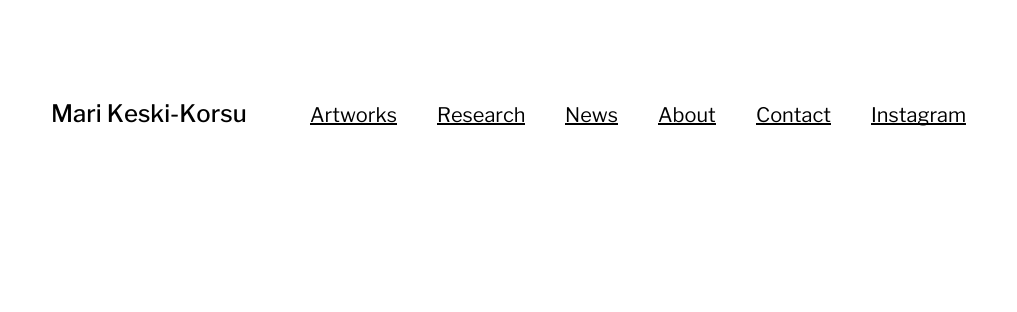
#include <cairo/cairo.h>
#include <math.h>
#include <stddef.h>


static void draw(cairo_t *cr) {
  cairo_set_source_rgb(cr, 1, 1, 1);
  cairo_paint(cr);
  cairo_set_source_rgb(cr, 0, 0, 0);
  cairo_rectangle(cr, 310, 123, 87, 2);
  cairo_fill(cr);
  cairo_rectangle(cr, 437, 123, 88, 2);
  cairo_fill(cr);
  cairo_rectangle(cr, 565, 123, 53, 2);
  cairo_fill(cr);
  cairo_rectangle(cr, 658, 123, 58, 2);
  cairo_fill(cr);
  cairo_rectangle(cr, 756, 123, 75, 2);
  cairo_fill(cr);
  cairo_rectangle(cr, 871, 123, 95, 2);
  cairo_fill(cr);
  cairo_select_font_face(cr, "Libre Franklin Thin", CAIRO_FONT_SLANT_NORMAL, CAIRO_FONT_WEIGHT_NORMAL);
  cairo_set_font_size(cr, 24);
  cairo_move_to(cr, 51, 122);
  cairo_show_text(cr, "Mari Keski-Korsu");
  cairo_select_font_face(cr, "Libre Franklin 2 Thin", CAIRO_FONT_SLANT_NORMAL, CAIRO_FONT_WEIGHT_NORMAL);
  cairo_set_font_size(cr, 20);
  cairo_move_to(cr, 310, 122);
  cairo_show_text(cr, "Artworks");
  cairo_move_to(cr, 437, 122);
  cairo_show_text(cr, "Research");
  cairo_move_to(cr, 565, 122);
  cairo_show_text(cr, "News");
  cairo_move_to(cr, 658, 122);
  cairo_show_text(cr, "About");
  cairo_move_to(cr, 756, 122);
  cairo_show_text(cr, "Contact");
  cairo_move_to(cr, 871, 122);
  cairo_show_text(cr, "Instagram");
}

int main(void) {
  cairo_surface_t *surface = cairo_image_surface_create(CAIRO_FORMAT_RGB24, 1017, 312);
  cairo_t *cr = cairo_create(surface);
  cairo_font_options_t *options = cairo_font_options_create();
  cairo_font_options_set_hint_metrics(options, CAIRO_HINT_METRICS_OFF);
  cairo_font_options_set_hint_style(options, CAIRO_HINT_STYLE_NONE);
  cairo_set_font_options(cr, options);
  cairo_set_miter_limit(cr, 4);
  draw(cr);
  cairo_surface_write_to_png(surface, "out.png");
  cairo_font_options_destroy(options);
  cairo_destroy(cr);
  cairo_surface_destroy(surface);
  return 0;
}
